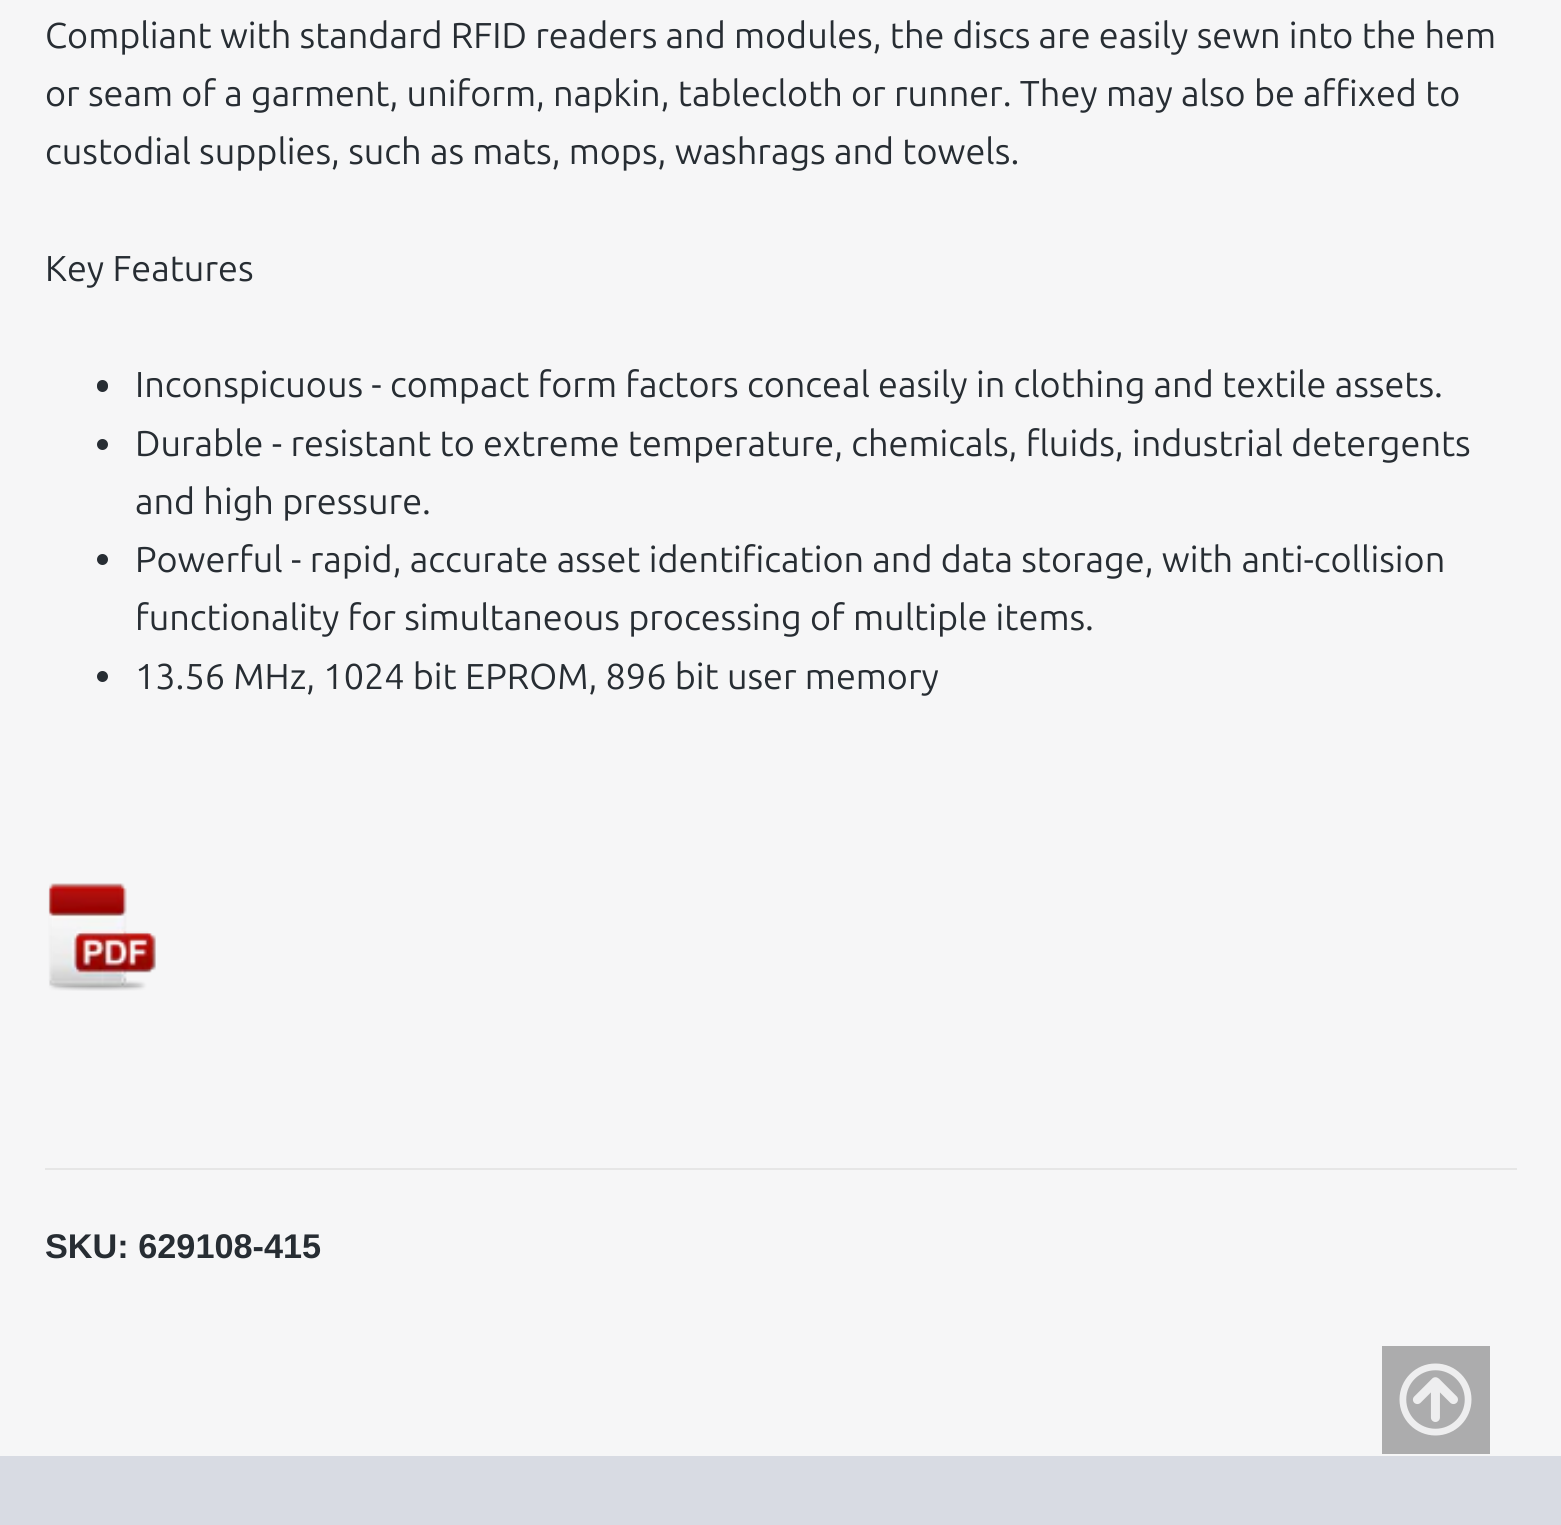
#include <cairo/cairo.h>
#include <math.h>
#include <stddef.h>


static void rounded_rect(cairo_t *cr, double x, double y, double w, double h, double r) {
  cairo_new_sub_path(cr);
  cairo_arc(cr, x + w - r, y + h - r, r, 0, M_PI / 2);
  cairo_arc(cr, x + r, y + h - r, r, M_PI / 2, M_PI);
  cairo_arc(cr, x + r, y + r, r, M_PI, 1.5 * M_PI);
  cairo_arc(cr, x + w - r, y + r, r, 1.5 * M_PI, 2 * M_PI);
  cairo_close_path(cr);
}

static void draw_image(cairo_t *cr, const char *path, double x, double y, double w, double h) {
  cairo_surface_t *image = cairo_image_surface_create_from_png(path);
  cairo_save(cr);
  cairo_set_source_surface(cr, image, x, y);
  cairo_rectangle(cr, x, y, w, h);
  cairo_fill(cr);
  cairo_restore(cr);
  cairo_surface_destroy(image);
}

static void draw(cairo_t *cr) {
  cairo_set_source_rgb(cr, 246 / 255.0, 246 / 255.0, 247 / 255.0);
  cairo_paint(cr);
  cairo_set_source_rgb(cr, 39 / 255.0, 45 / 255.0, 51 / 255.0);
  rounded_rect(cr, 97, 380, 11, 12, 5.5);
  cairo_fill(cr);
  cairo_arc(cr, 102.5, 444.5, 5.5, 0, 2 * M_PI);
  cairo_fill(cr);
  cairo_arc(cr, 102.5, 559.5, 5.5, 0, 2 * M_PI);
  cairo_fill(cr);
  cairo_arc(cr, 102.5, 676.5, 5.5, 0, 2 * M_PI);
  cairo_fill(cr);
  draw_image(cr, "images/1.png", 48, 883, 108, 108);
  cairo_set_source_rgb(cr, 230 / 255.0, 230 / 255.0, 230 / 255.0);
  cairo_rectangle(cr, 45, 1168, 1472, 2);
  cairo_fill(cr);
  cairo_set_source_rgb(cr, 172 / 255.0, 172 / 255.0, 173 / 255.0);
  cairo_rectangle(cr, 1382, 1346, 108, 108);
  cairo_fill(cr);
  draw_image(cr, "images/2.png", 1399, 1363, 73, 73);
  cairo_set_source_rgb(cr, 216 / 255.0, 219 / 255.0, 227 / 255.0);
  cairo_rectangle(cr, 0, 1456, 1561, 69);
  cairo_fill(cr);
  cairo_select_font_face(cr, "Ubuntu", CAIRO_FONT_SLANT_NORMAL, CAIRO_FONT_WEIGHT_NORMAL);
  cairo_set_font_size(cr, 36);
  cairo_set_source_rgb(cr, 39 / 255.0, 45 / 255.0, 51 / 255.0);
  cairo_move_to(cr, 45, 48);
  cairo_show_text(cr, "Compliant with standard RFID readers and modules, the discs are easily sewn into the hem");
  cairo_move_to(cr, 45, 106);
  cairo_show_text(cr, "or seam of a garment, uniform, napkin, tablecloth or runner. They may also be affixed to");
  cairo_move_to(cr, 45, 164);
  cairo_show_text(cr, "custodial supplies, such as mats, mops, washrags and towels.");
  cairo_move_to(cr, 45, 281);
  cairo_show_text(cr, "Key Features");
  cairo_move_to(cr, 135, 397);
  cairo_show_text(cr, "Inconspicuous - compact form factors conceal easily in clothing and textile assets.");
  cairo_move_to(cr, 135, 456);
  cairo_show_text(cr, "Durable - resistant to extreme temperature, chemicals, fluids, industrial detergents");
  cairo_move_to(cr, 135, 514);
  cairo_show_text(cr, "and high pressure.");
  cairo_move_to(cr, 135, 572);
  cairo_show_text(cr, "Powerful - rapid, accurate asset identification and data storage, with anti-collision");
  cairo_move_to(cr, 135, 630);
  cairo_show_text(cr, "functionality for simultaneous processing of multiple items.");
  cairo_move_to(cr, 135, 689);
  cairo_show_text(cr, "13.56 MHz, 1024 bit EPROM, 896 bit user memory");
  cairo_select_font_face(cr, "Liberation Sans", CAIRO_FONT_SLANT_NORMAL, CAIRO_FONT_WEIGHT_BOLD);
  cairo_set_font_size(cr, 34.25);
  cairo_move_to(cr, 45, 1258);
  cairo_show_text(cr, "SKU: 629108-415");
}

int main(void) {
  cairo_surface_t *surface = cairo_image_surface_create(CAIRO_FORMAT_RGB24, 1561, 1525);
  cairo_t *cr = cairo_create(surface);
  cairo_font_options_t *options = cairo_font_options_create();
  cairo_font_options_set_hint_metrics(options, CAIRO_HINT_METRICS_OFF);
  cairo_font_options_set_hint_style(options, CAIRO_HINT_STYLE_NONE);
  cairo_set_font_options(cr, options);
  cairo_set_miter_limit(cr, 4);
  draw(cr);
  cairo_surface_write_to_png(surface, "out.png");
  cairo_font_options_destroy(options);
  cairo_destroy(cr);
  cairo_surface_destroy(surface);
  return 0;
}
